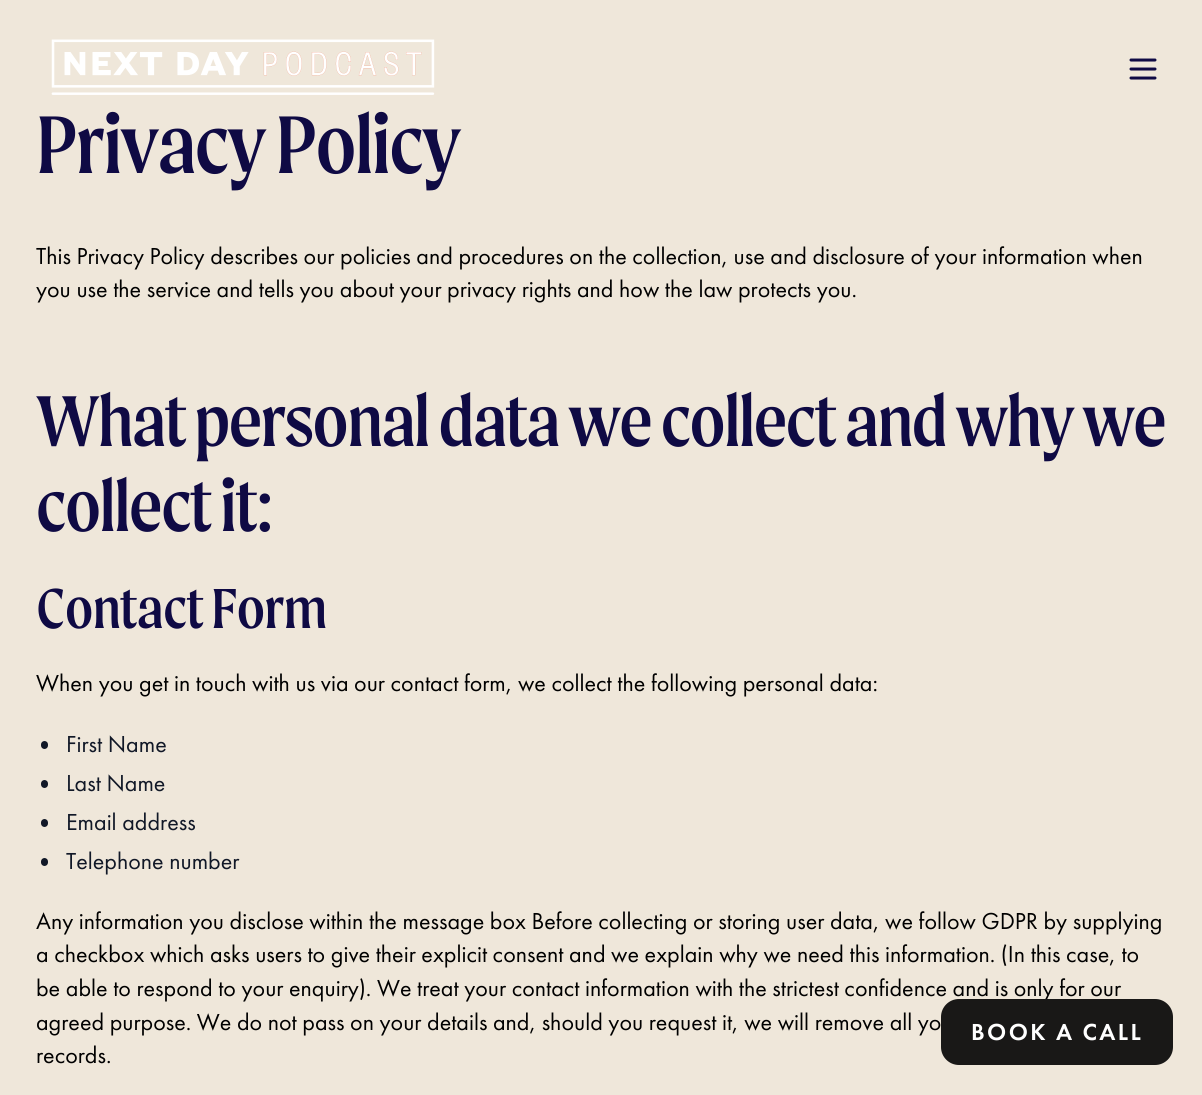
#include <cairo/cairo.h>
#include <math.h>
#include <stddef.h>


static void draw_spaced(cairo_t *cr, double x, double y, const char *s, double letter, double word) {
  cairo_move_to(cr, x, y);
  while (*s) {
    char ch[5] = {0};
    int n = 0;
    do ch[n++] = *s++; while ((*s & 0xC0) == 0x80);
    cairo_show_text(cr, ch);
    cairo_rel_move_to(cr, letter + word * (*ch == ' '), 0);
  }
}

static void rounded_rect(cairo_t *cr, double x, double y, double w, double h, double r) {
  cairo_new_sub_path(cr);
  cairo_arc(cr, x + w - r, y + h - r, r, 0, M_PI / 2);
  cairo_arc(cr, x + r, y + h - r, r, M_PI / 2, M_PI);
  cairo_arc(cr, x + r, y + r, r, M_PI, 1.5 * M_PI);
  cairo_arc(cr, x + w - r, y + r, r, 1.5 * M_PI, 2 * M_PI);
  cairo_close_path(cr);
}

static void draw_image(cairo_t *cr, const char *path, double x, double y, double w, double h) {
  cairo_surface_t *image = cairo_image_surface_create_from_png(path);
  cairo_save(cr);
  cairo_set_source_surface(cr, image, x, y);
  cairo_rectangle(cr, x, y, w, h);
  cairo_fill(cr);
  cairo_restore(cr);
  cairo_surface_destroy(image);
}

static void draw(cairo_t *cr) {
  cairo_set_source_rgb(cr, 239 / 255.0, 231 / 255.0, 218 / 255.0);
  cairo_paint(cr);
  draw_image(cr, "images/1.png", 51, 39, 384, 56);
  cairo_new_path(cr);
  cairo_move_to(cr, 1131, 60);
  cairo_line_to(cr, 1155, 60);
  cairo_move_to(cr, 1131, 69);
  cairo_line_to(cr, 1155, 69);
  cairo_move_to(cr, 1131, 78);
  cairo_line_to(cr, 1155, 78);
  cairo_set_source_rgb(cr, 15 / 255.0, 10 / 255.0, 68 / 255.0);
  cairo_set_line_width(cr, 3);
  cairo_set_line_cap(cr, CAIRO_LINE_CAP_ROUND);
  cairo_set_line_join(cr, CAIRO_LINE_JOIN_ROUND);
  cairo_stroke(cr);
  cairo_set_source_rgb(cr, 17 / 255.0, 24 / 255.0, 39 / 255.0);
  rounded_rect(cr, 41, 741, 7, 8, 3.5);
  cairo_fill(cr);
  rounded_rect(cr, 41, 780, 7, 8, 3.5);
  cairo_fill(cr);
  rounded_rect(cr, 41, 819, 7, 8, 3.5);
  cairo_fill(cr);
  rounded_rect(cr, 41, 858, 7, 8, 3.5);
  cairo_fill(cr);
  cairo_select_font_face(cr, "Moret", CAIRO_FONT_SLANT_NORMAL, CAIRO_FONT_WEIGHT_NORMAL);
  cairo_set_font_size(cr, 87);
  cairo_set_source_rgb(cr, 15 / 255.0, 10 / 255.0, 68 / 255.0);
  draw_spaced(cr, 36, 173, "Privacy Policy", -1.75, 0);
  cairo_select_font_face(cr, "Futura PT", CAIRO_FONT_SLANT_NORMAL, CAIRO_FONT_WEIGHT_NORMAL);
  cairo_set_font_size(cr, 24);
  cairo_set_source_rgb(cr, 0, 0, 0);
  cairo_move_to(cr, 36, 264);
  cairo_show_text(cr, "This Privacy Policy describes our policies and procedures on the collection, use and disclosure of your information when");
  cairo_move_to(cr, 36, 297);
  cairo_show_text(cr, "you use the service and tells you about your privacy rights and how the law protects you.");
  cairo_select_font_face(cr, "Moret", CAIRO_FONT_SLANT_NORMAL, CAIRO_FONT_WEIGHT_NORMAL);
  cairo_set_font_size(cr, 76.5);
  cairo_set_source_rgb(cr, 15 / 255.0, 10 / 255.0, 68 / 255.0);
  draw_spaced(cr, 36, 446, "What personal data we collect and why we", -1.55, 0);
  draw_spaced(cr, 36, 531, "collect it:", -1.55, 0);
  cairo_set_font_size(cr, 60);
  draw_spaced(cr, 36, 628, "Contact Form", -0.6, 0);
  cairo_select_font_face(cr, "Futura PT", CAIRO_FONT_SLANT_NORMAL, CAIRO_FONT_WEIGHT_NORMAL);
  cairo_set_font_size(cr, 24);
  cairo_set_source_rgb(cr, 0, 0, 0);
  cairo_move_to(cr, 36, 691);
  cairo_show_text(cr, "When you get in touch with us via our contact form, we collect the following personal data:");
  cairo_set_source_rgb(cr, 17 / 255.0, 24 / 255.0, 39 / 255.0);
  cairo_move_to(cr, 66, 752);
  cairo_show_text(cr, "First Name");
  cairo_move_to(cr, 66, 791);
  cairo_show_text(cr, "Last Name");
  cairo_move_to(cr, 66, 830);
  cairo_show_text(cr, "Email address");
  cairo_move_to(cr, 66, 869);
  cairo_show_text(cr, "Telephone number");
  cairo_set_source_rgb(cr, 0, 0, 0);
  cairo_move_to(cr, 36, 929);
  cairo_show_text(cr, "Any information you disclose within the message box Before collecting or storing user data, we follow GDPR by supplying");
  cairo_move_to(cr, 36, 962);
  cairo_show_text(cr, "a checkbox which asks users to give their explicit consent and we explain why we need this information. (In this case, to");
  cairo_move_to(cr, 36, 996);
  cairo_show_text(cr, "be able to respond to your enquiry). We treat your contact information with the strictest confidence and is only for our");
  cairo_move_to(cr, 36, 1030);
  cairo_show_text(cr, "agreed purpose. We do not pass on your details and, should you request it, we will remove all yo");
  cairo_move_to(cr, 36, 1063);
  cairo_show_text(cr, "records.");
  cairo_set_source_rgb(cr, 25 / 255.0, 24 / 255.0, 23 / 255.0);
  rounded_rect(cr, 941, 999, 232, 66, 18);
  cairo_fill(cr);
  cairo_select_font_face(cr, "Futura PT Medium", CAIRO_FONT_SLANT_NORMAL, CAIRO_FONT_WEIGHT_NORMAL);
  cairo_set_source_rgb(cr, 1, 1, 1);
  draw_spaced(cr, 971, 1040, "BOOK A CALL", 2.4, 0);
}

int main(void) {
  cairo_surface_t *surface = cairo_image_surface_create(CAIRO_FORMAT_RGB24, 1202, 1095);
  cairo_t *cr = cairo_create(surface);
  cairo_font_options_t *options = cairo_font_options_create();
  cairo_font_options_set_hint_metrics(options, CAIRO_HINT_METRICS_OFF);
  cairo_font_options_set_hint_style(options, CAIRO_HINT_STYLE_NONE);
  cairo_set_font_options(cr, options);
  cairo_set_miter_limit(cr, 4);
  draw(cr);
  cairo_surface_write_to_png(surface, "out.png");
  cairo_font_options_destroy(options);
  cairo_destroy(cr);
  cairo_surface_destroy(surface);
  return 0;
}
